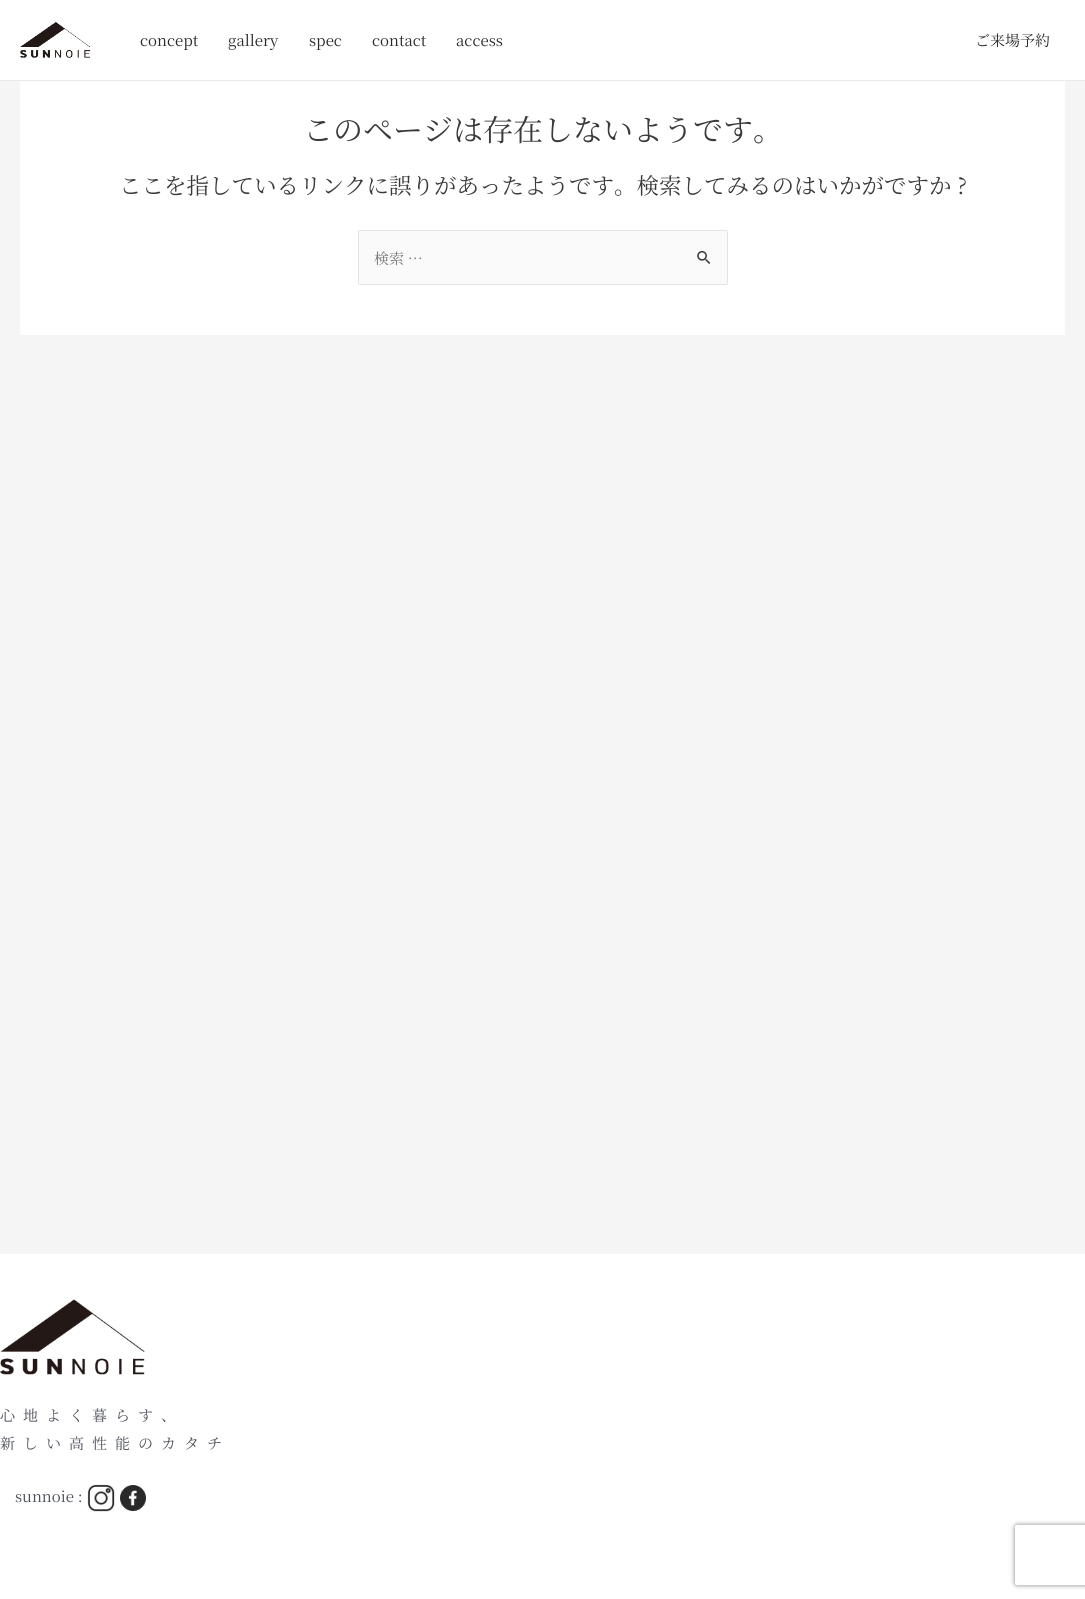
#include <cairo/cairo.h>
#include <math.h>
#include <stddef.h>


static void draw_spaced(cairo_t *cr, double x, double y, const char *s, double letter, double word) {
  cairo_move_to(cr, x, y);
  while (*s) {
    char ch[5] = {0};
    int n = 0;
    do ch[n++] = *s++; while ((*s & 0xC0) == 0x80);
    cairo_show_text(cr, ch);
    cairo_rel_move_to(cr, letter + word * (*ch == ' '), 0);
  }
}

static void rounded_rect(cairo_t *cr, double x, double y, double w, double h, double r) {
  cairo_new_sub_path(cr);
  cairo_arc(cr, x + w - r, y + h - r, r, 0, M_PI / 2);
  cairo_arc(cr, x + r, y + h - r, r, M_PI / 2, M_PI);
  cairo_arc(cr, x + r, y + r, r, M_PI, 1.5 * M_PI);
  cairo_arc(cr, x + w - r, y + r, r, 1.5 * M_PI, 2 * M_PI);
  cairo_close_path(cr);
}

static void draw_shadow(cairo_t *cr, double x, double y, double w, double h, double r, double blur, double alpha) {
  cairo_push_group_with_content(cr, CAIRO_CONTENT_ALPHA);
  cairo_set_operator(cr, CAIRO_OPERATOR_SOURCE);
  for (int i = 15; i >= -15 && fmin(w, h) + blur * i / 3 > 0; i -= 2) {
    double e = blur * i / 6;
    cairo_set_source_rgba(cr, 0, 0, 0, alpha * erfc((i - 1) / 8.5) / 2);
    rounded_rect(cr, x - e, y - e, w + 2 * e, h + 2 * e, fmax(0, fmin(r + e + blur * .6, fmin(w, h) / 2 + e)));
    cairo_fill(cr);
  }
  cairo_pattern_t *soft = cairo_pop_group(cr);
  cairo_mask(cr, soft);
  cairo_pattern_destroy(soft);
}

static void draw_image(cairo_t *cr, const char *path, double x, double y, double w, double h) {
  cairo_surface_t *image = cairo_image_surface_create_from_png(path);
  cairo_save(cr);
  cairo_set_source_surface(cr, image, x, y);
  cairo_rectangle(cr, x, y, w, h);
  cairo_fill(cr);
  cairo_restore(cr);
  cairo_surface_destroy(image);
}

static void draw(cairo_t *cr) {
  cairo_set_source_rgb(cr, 245 / 255.0, 245 / 255.0, 245 / 255.0);
  cairo_paint(cr);
  cairo_set_source_rgb(cr, 1, 1, 1);
  cairo_rectangle(cr, 0, 0, 1085, 80);
  cairo_fill(cr);
  cairo_set_source_rgb(cr, 234 / 255.0, 234 / 255.0, 234 / 255.0);
  cairo_rectangle(cr, 0, 80, 1085, 1);
  cairo_fill(cr);
  draw_image(cr, "images/1.png", 20, 21, 70, 37);
  cairo_set_source_rgb(cr, 1, 1, 1);
  cairo_rectangle(cr, 20, 81, 1045, 254);
  cairo_fill(cr);
  cairo_set_source_rgb(cr, 250 / 255.0, 250 / 255.0, 250 / 255.0);
  rounded_rect(cr, 358.5, 230.5, 369, 54, 1.5);
  cairo_fill_preserve(cr);
  cairo_set_source_rgb(cr, 229 / 255.0, 229 / 255.0, 229 / 255.0);
  cairo_set_line_width(cr, 1);
  cairo_stroke(cr);
  draw_image(cr, "images/2.png", 697, 250, 14, 14);
  cairo_set_source_rgb(cr, 1, 1, 1);
  cairo_rectangle(cr, 0, 1254, 1085, 345);
  cairo_fill(cr);
  draw_image(cr, "images/3.png", 0, 1299, 145, 76);
  draw_image(cr, "images/4.png", 87, 1484, 28, 28);
  draw_image(cr, "images/5.png", 120, 1485, 26, 26);
  cairo_save(cr);
  cairo_set_fill_rule(cr, CAIRO_FILL_RULE_EVEN_ODD);
  cairo_new_path(cr);
  cairo_move_to(cr, 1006, 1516);
  cairo_line_to(cr, 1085, 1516);
  cairo_line_to(cr, 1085, 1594);
  cairo_line_to(cr, 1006, 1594);
  cairo_close_path(cr);
  cairo_move_to(cr, 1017, 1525);
  cairo_line_to(cr, 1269, 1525);
  cairo_curve_to(cr, 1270, 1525, 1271, 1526, 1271, 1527);
  cairo_line_to(cr, 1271, 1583);
  cairo_curve_to(cr, 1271, 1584, 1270, 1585, 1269, 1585);
  cairo_line_to(cr, 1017, 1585);
  cairo_curve_to(cr, 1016, 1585, 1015, 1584, 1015, 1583);
  cairo_line_to(cr, 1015, 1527);
  cairo_curve_to(cr, 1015, 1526, 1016, 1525, 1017, 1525);
  cairo_close_path(cr);
  cairo_clip(cr);
  cairo_set_source_rgb(cr, 128 / 255.0, 128 / 255.0, 128 / 255.0);
  draw_shadow(cr, 1015, 1525, 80, 60, 2, 2.5, 1);
  cairo_restore(cr);
  cairo_select_font_face(cr, "Noto Serif JP", CAIRO_FONT_SLANT_NORMAL, CAIRO_FONT_WEIGHT_NORMAL);
  cairo_set_font_size(cr, 15);
  cairo_set_source_rgb(cr, 41 / 255.0, 41 / 255.0, 41 / 255.0);
  cairo_move_to(cr, 140, 46);
  cairo_show_text(cr, "concept");
  cairo_move_to(cr, 228, 46);
  cairo_show_text(cr, "gallery");
  cairo_move_to(cr, 309, 46);
  cairo_show_text(cr, "spec");
  cairo_move_to(cr, 372, 46);
  cairo_show_text(cr, "contact");
  cairo_move_to(cr, 456, 46);
  cairo_show_text(cr, "access");
  cairo_move_to(cr, 975, 46);
  cairo_show_text(cr, "ご来場予約");
  cairo_set_font_size(cr, 30);
  cairo_set_source_rgb(cr, 58 / 255.0, 58 / 255.0, 58 / 255.0);
  cairo_move_to(cr, 303, 141);
  cairo_show_text(cr, "このページは存在しないようです。");
  cairo_set_font_size(cr, 22.5);
  cairo_move_to(cr, 119, 194);
  cairo_show_text(cr, "ここを指しているリンクに誤りがあったようです。検索してみるのはいかがですか ?");
  cairo_set_font_size(cr, 15);
  cairo_set_source_rgb(cr, 117 / 255.0, 117 / 255.0, 117 / 255.0);
  cairo_move_to(cr, 374, 264);
  cairo_show_text(cr, "検索 …");
  cairo_set_source_rgb(cr, 75 / 255.0, 79 / 255.0, 88 / 255.0);
  draw_spaced(cr, 0, 1421, "心地よく暮らす、", 8, 0);
  draw_spaced(cr, 0, 1449, "新しい高性能のカタチ", 8, 0);
  cairo_move_to(cr, 15, 1502);
  cairo_show_text(cr, "sunnoie :");
}

int main(void) {
  cairo_surface_t *surface = cairo_image_surface_create(CAIRO_FORMAT_RGB24, 1085, 1599);
  cairo_t *cr = cairo_create(surface);
  cairo_font_options_t *options = cairo_font_options_create();
  cairo_font_options_set_hint_metrics(options, CAIRO_HINT_METRICS_OFF);
  cairo_font_options_set_hint_style(options, CAIRO_HINT_STYLE_NONE);
  cairo_set_font_options(cr, options);
  cairo_set_miter_limit(cr, 4);
  draw(cr);
  cairo_surface_write_to_png(surface, "out.png");
  cairo_font_options_destroy(options);
  cairo_destroy(cr);
  cairo_surface_destroy(surface);
  return 0;
}
